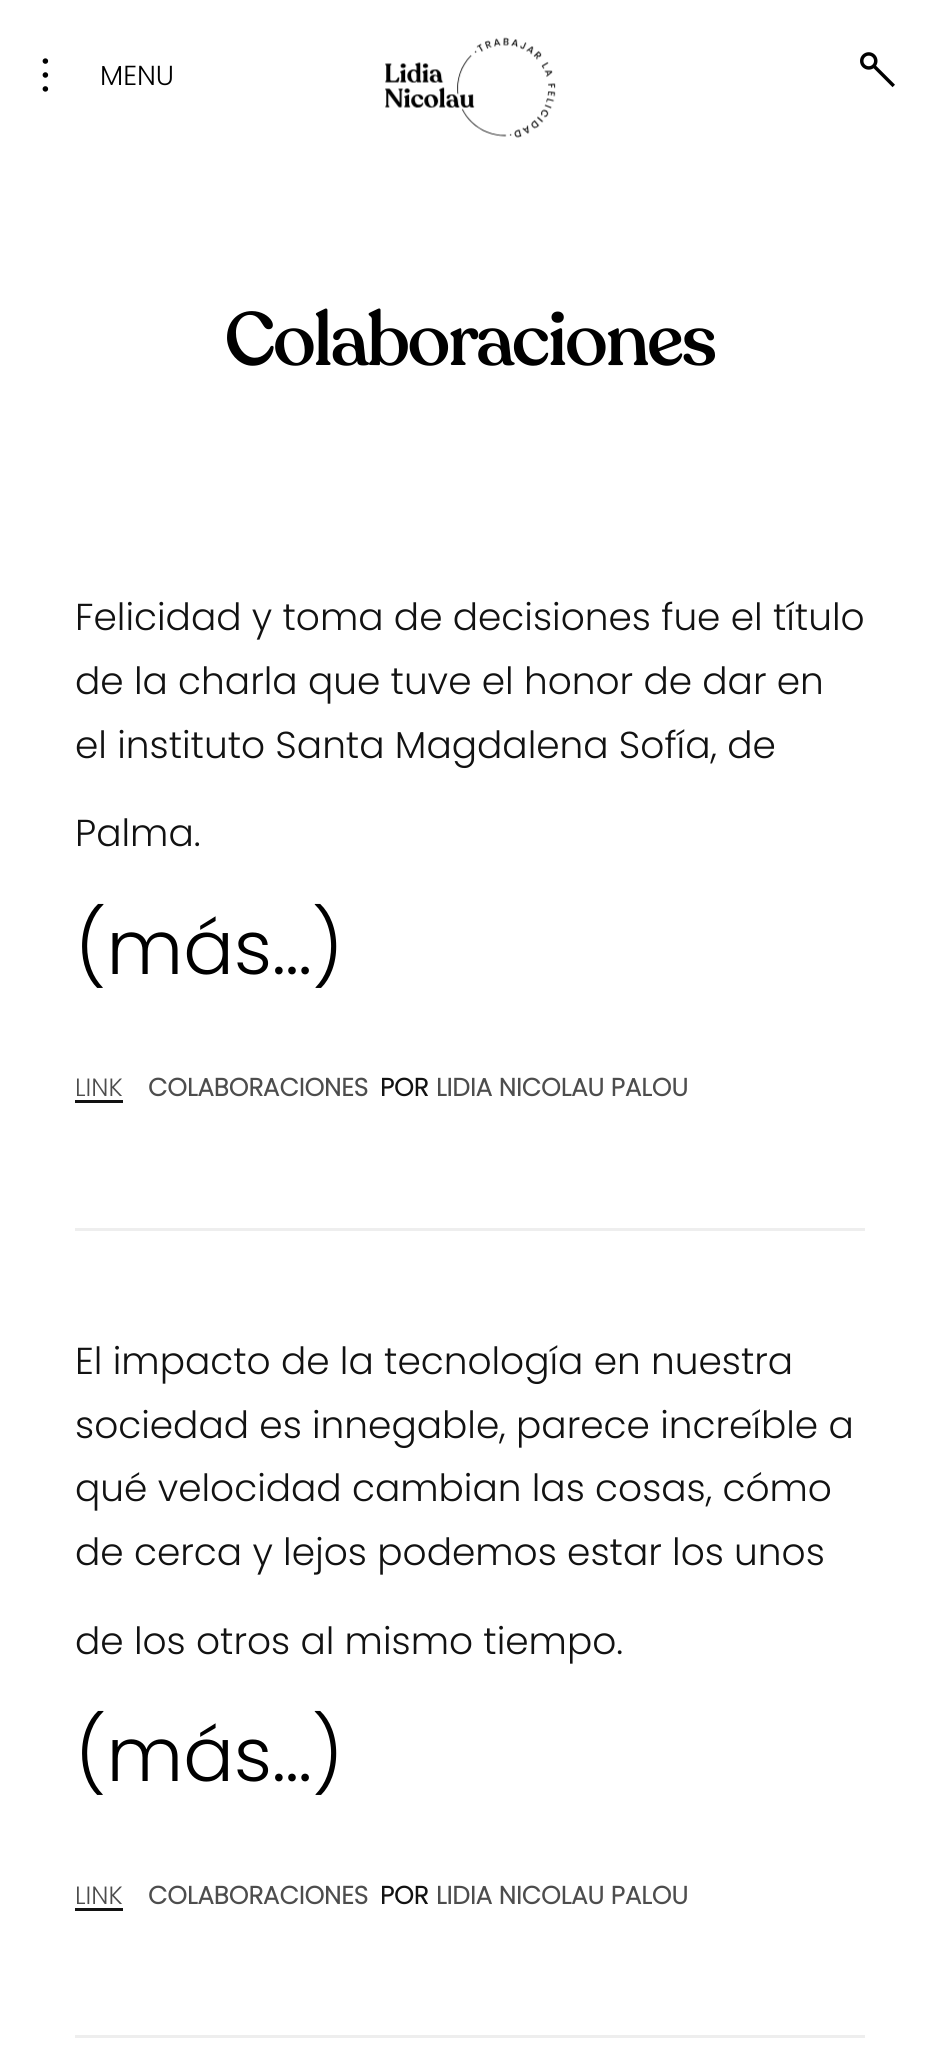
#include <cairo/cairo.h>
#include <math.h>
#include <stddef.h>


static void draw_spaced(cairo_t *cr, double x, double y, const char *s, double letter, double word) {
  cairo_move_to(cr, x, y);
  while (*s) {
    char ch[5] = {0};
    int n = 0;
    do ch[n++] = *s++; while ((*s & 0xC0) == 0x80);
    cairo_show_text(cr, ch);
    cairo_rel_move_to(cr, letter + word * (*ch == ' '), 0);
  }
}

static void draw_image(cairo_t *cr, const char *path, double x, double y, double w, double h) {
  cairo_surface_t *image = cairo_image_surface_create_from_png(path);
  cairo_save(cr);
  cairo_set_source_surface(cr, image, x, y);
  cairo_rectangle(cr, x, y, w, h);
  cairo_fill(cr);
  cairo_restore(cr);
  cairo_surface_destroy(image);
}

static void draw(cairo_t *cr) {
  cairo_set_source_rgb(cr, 1, 1, 1);
  cairo_paint(cr);
  draw_image(cr, "images/1.png", 42, 58, 7, 34);
  draw_image(cr, "images/2.png", 385, 37, 171, 101);
  draw_image(cr, "images/3.png", 860, 52, 35, 36);
  cairo_set_source_rgb(cr, 18 / 255.0, 18 / 255.0, 18 / 255.0);
  cairo_rectangle(cr, 75, 1100, 48, 3);
  cairo_fill(cr);
  cairo_set_source_rgb(cr, 238 / 255.0, 238 / 255.0, 238 / 255.0);
  cairo_rectangle(cr, 75, 1228, 790, 3);
  cairo_fill(cr);
  cairo_set_source_rgb(cr, 18 / 255.0, 18 / 255.0, 18 / 255.0);
  cairo_rectangle(cr, 75, 1908, 48, 3);
  cairo_fill(cr);
  cairo_set_source_rgb(cr, 238 / 255.0, 238 / 255.0, 238 / 255.0);
  cairo_rectangle(cr, 75, 2035, 790, 3);
  cairo_fill(cr);
  cairo_select_font_face(cr, "Poppins Light", CAIRO_FONT_SLANT_NORMAL, CAIRO_FONT_WEIGHT_NORMAL);
  cairo_set_font_size(cr, 27.5);
  cairo_set_source_rgb(cr, 0, 0, 0);
  cairo_move_to(cr, 100, 85);
  cairo_show_text(cr, "MENU");
  cairo_select_font_face(cr, "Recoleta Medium", CAIRO_FONT_SLANT_NORMAL, CAIRO_FONT_WEIGHT_NORMAL);
  cairo_set_font_size(cr, 75);
  draw_spaced(cr, 225, 365, "Colaboraciones", -2.5, 0);
  cairo_select_font_face(cr, "Poppins Light", CAIRO_FONT_SLANT_NORMAL, CAIRO_FONT_WEIGHT_NORMAL);
  cairo_set_font_size(cr, 37.5);
  cairo_set_source_rgb(cr, 18 / 255.0, 18 / 255.0, 18 / 255.0);
  cairo_move_to(cr, 75, 630);
  cairo_show_text(cr, "Felicidad y toma de decisiones fue el título");
  cairo_move_to(cr, 75, 694);
  cairo_show_text(cr, "de la charla que tuve el honor de dar en");
  cairo_move_to(cr, 75, 758);
  cairo_show_text(cr, "el instituto Santa Magdalena Sofía, de");
  cairo_move_to(cr, 75, 846);
  cairo_show_text(cr, "Palma.");
  cairo_set_font_size(cr, 75);
  cairo_set_source_rgb(cr, 0, 0, 0);
  cairo_move_to(cr, 75, 974);
  cairo_show_text(cr, "(más…)");
  cairo_set_font_size(cr, 25);
  cairo_set_source_rgb(cr, 77 / 255.0, 77 / 255.0, 77 / 255.0);
  cairo_move_to(cr, 75, 1096);
  cairo_show_text(cr, "LINK");
  cairo_select_font_face(cr, "Poppins", CAIRO_FONT_SLANT_NORMAL, CAIRO_FONT_WEIGHT_BOLD);
  cairo_move_to(cr, 148, 1096);
  cairo_show_text(cr, "COLABORACIONES");
  cairo_set_source_rgb(cr, 18 / 255.0, 18 / 255.0, 18 / 255.0);
  cairo_move_to(cr, 380, 1096);
  cairo_show_text(cr, "POR");
  cairo_set_source_rgb(cr, 77 / 255.0, 77 / 255.0, 77 / 255.0);
  cairo_move_to(cr, 436, 1096);
  cairo_show_text(cr, "LIDIA NICOLAU PALOU");
  cairo_select_font_face(cr, "Poppins Light", CAIRO_FONT_SLANT_NORMAL, CAIRO_FONT_WEIGHT_NORMAL);
  cairo_set_font_size(cr, 37.5);
  cairo_set_source_rgb(cr, 18 / 255.0, 18 / 255.0, 18 / 255.0);
  cairo_move_to(cr, 75, 1374);
  cairo_show_text(cr, "El impacto de la tecnología en nuestra");
  cairo_move_to(cr, 75, 1438);
  cairo_show_text(cr, "sociedad es innegable, parece increíble a");
  cairo_move_to(cr, 75, 1501);
  cairo_show_text(cr, "qué velocidad cambian las cosas, cómo");
  cairo_move_to(cr, 75, 1565);
  cairo_show_text(cr, "de cerca y lejos podemos estar los unos");
  cairo_move_to(cr, 75, 1654);
  cairo_show_text(cr, "de los otros al mismo tiempo.");
  cairo_set_font_size(cr, 75);
  cairo_set_source_rgb(cr, 0, 0, 0);
  cairo_move_to(cr, 75, 1781);
  cairo_show_text(cr, "(más…)");
  cairo_set_font_size(cr, 25);
  cairo_set_source_rgb(cr, 77 / 255.0, 77 / 255.0, 77 / 255.0);
  cairo_move_to(cr, 75, 1904);
  cairo_show_text(cr, "LINK");
  cairo_select_font_face(cr, "Poppins", CAIRO_FONT_SLANT_NORMAL, CAIRO_FONT_WEIGHT_BOLD);
  cairo_move_to(cr, 148, 1904);
  cairo_show_text(cr, "COLABORACIONES");
  cairo_set_source_rgb(cr, 18 / 255.0, 18 / 255.0, 18 / 255.0);
  cairo_move_to(cr, 380, 1904);
  cairo_show_text(cr, "POR");
  cairo_set_source_rgb(cr, 77 / 255.0, 77 / 255.0, 77 / 255.0);
  cairo_move_to(cr, 436, 1904);
  cairo_show_text(cr, "LIDIA NICOLAU PALOU");
}

int main(void) {
  cairo_surface_t *surface = cairo_image_surface_create(CAIRO_FORMAT_RGB24, 939, 2070);
  cairo_t *cr = cairo_create(surface);
  cairo_font_options_t *options = cairo_font_options_create();
  cairo_font_options_set_hint_metrics(options, CAIRO_HINT_METRICS_OFF);
  cairo_font_options_set_hint_style(options, CAIRO_HINT_STYLE_NONE);
  cairo_set_font_options(cr, options);
  cairo_set_miter_limit(cr, 4);
  draw(cr);
  cairo_surface_write_to_png(surface, "out.png");
  cairo_font_options_destroy(options);
  cairo_destroy(cr);
  cairo_surface_destroy(surface);
  return 0;
}
